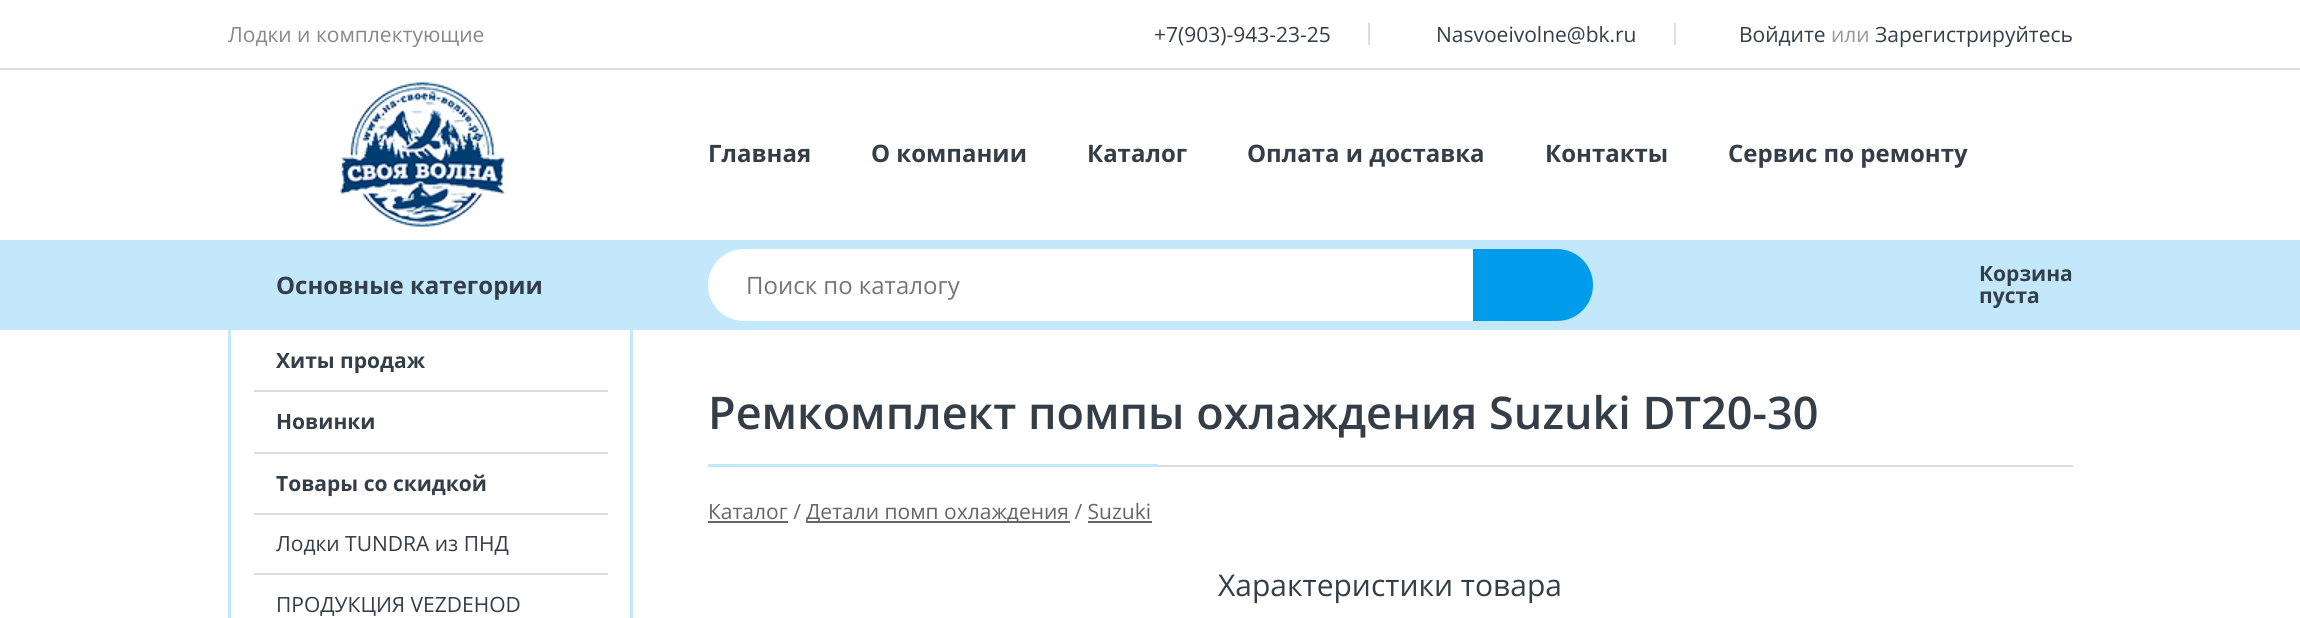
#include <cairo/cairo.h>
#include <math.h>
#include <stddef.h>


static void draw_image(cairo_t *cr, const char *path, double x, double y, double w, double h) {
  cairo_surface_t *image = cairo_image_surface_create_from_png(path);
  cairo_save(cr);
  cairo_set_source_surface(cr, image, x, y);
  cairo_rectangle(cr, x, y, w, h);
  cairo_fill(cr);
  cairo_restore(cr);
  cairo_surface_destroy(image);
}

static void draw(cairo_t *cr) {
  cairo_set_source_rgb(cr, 1, 1, 1);
  cairo_paint(cr);
  cairo_set_source_rgb(cr, 221 / 255.0, 221 / 255.0, 221 / 255.0);
  cairo_rectangle(cr, 0, 68, 2300, 2);
  cairo_fill(cr);
  cairo_rectangle(cr, 1368, 23, 2, 22);
  cairo_fill(cr);
  cairo_rectangle(cr, 1674, 23, 2, 22);
  cairo_fill(cr);
  draw_image(cr, "images/1.png", 340, 82, 165, 145);
  cairo_set_source_rgb(cr, 195 / 255.0, 231 / 255.0, 251 / 255.0);
  cairo_rectangle(cr, 0, 240, 2300, 90);
  cairo_fill(cr);
  cairo_set_source_rgb(cr, 1, 1, 1);
  cairo_new_path(cr);
  cairo_move_to(cr, 744, 249);
  cairo_line_to(cr, 1473, 249);
  cairo_line_to(cr, 1473, 321);
  cairo_line_to(cr, 744, 321);
  cairo_curve_to(cr, 724, 321, 708, 305, 708, 285);
  cairo_curve_to(cr, 708, 265, 724, 249, 744, 249);
  cairo_close_path(cr);
  cairo_fill(cr);
  cairo_set_source_rgb(cr, 0, 156 / 255.0, 236 / 255.0);
  cairo_new_path(cr);
  cairo_move_to(cr, 1473, 249);
  cairo_line_to(cr, 1557, 249);
  cairo_curve_to(cr, 1577, 249, 1593, 265, 1593, 285);
  cairo_curve_to(cr, 1593, 305, 1577, 321, 1557, 321);
  cairo_line_to(cr, 1473, 321);
  cairo_close_path(cr);
  cairo_fill(cr);
  cairo_set_source_rgb(cr, 195 / 255.0, 231 / 255.0, 251 / 255.0);
  cairo_set_fill_rule(cr, CAIRO_FILL_RULE_EVEN_ODD);
  cairo_new_path(cr);
  cairo_move_to(cr, 228, 330);
  cairo_line_to(cr, 633, 330);
  cairo_line_to(cr, 633, 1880);
  cairo_curve_to(cr, 633, 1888, 626, 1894, 618, 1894);
  cairo_line_to(cr, 243, 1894);
  cairo_curve_to(cr, 235, 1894, 228, 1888, 228, 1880);
  cairo_close_path(cr);
  cairo_move_to(cr, 231, 330);
  cairo_line_to(cr, 630, 330);
  cairo_line_to(cr, 630, 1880);
  cairo_curve_to(cr, 630, 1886, 625, 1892, 618, 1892);
  cairo_line_to(cr, 243, 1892);
  cairo_curve_to(cr, 236, 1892, 231, 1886, 231, 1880);
  cairo_close_path(cr);
  cairo_fill(cr);
  cairo_set_source_rgb(cr, 221 / 255.0, 221 / 255.0, 221 / 255.0);
  cairo_rectangle(cr, 254, 390, 354, 2);
  cairo_fill(cr);
  cairo_rectangle(cr, 254, 452, 354, 2);
  cairo_fill(cr);
  cairo_rectangle(cr, 254, 513, 354, 2);
  cairo_fill(cr);
  cairo_rectangle(cr, 254, 573, 354, 2);
  cairo_fill(cr);
  cairo_rectangle(cr, 1158, 465, 915, 2);
  cairo_fill(cr);
  cairo_set_source_rgb(cr, 195 / 255.0, 231 / 255.0, 251 / 255.0);
  cairo_rectangle(cr, 708, 464, 450, 3);
  cairo_fill(cr);
  cairo_set_source_rgb(cr, 102 / 255.0, 102 / 255.0, 102 / 255.0);
  cairo_rectangle(cr, 708, 521, 80, 2);
  cairo_fill(cr);
  cairo_rectangle(cr, 807, 521, 263, 2);
  cairo_fill(cr);
  cairo_rectangle(cr, 1088, 521, 64, 2);
  cairo_fill(cr);
  cairo_select_font_face(cr, "Open Sans", CAIRO_FONT_SLANT_NORMAL, CAIRO_FONT_WEIGHT_NORMAL);
  cairo_set_font_size(cr, 21);
  cairo_set_source_rgb(cr, 136 / 255.0, 136 / 255.0, 136 / 255.0);
  cairo_move_to(cr, 228, 42);
  cairo_show_text(cr, "Лодки и комплектующие");
  cairo_set_source_rgb(cr, 51 / 255.0, 62 / 255.0, 72 / 255.0);
  cairo_move_to(cr, 1154, 42);
  cairo_show_text(cr, "+7(903)-943-23-25");
  cairo_move_to(cr, 1436, 42);
  cairo_show_text(cr, "Nasvoeivolne@bk.ru");
  cairo_move_to(cr, 1739, 42);
  cairo_show_text(cr, "Войдите");
  cairo_set_source_rgb(cr, 153 / 255.0, 153 / 255.0, 153 / 255.0);
  cairo_move_to(cr, 1831, 42);
  cairo_show_text(cr, "или");
  cairo_set_source_rgb(cr, 51 / 255.0, 62 / 255.0, 72 / 255.0);
  cairo_move_to(cr, 1875, 42);
  cairo_show_text(cr, "Зарегистрируйтесь");
  cairo_select_font_face(cr, "Open Sans", CAIRO_FONT_SLANT_NORMAL, CAIRO_FONT_WEIGHT_BOLD);
  cairo_set_font_size(cr, 24);
  cairo_move_to(cr, 708, 162);
  cairo_show_text(cr, "Главная");
  cairo_move_to(cr, 871, 162);
  cairo_show_text(cr, "О компании");
  cairo_move_to(cr, 1087, 162);
  cairo_show_text(cr, "Каталог");
  cairo_move_to(cr, 1247, 162);
  cairo_show_text(cr, "Оплата и доставка");
  cairo_move_to(cr, 1545, 162);
  cairo_show_text(cr, "Контакты");
  cairo_move_to(cr, 1728, 162);
  cairo_show_text(cr, "Сервис по ремонту");
  cairo_move_to(cr, 276, 294);
  cairo_show_text(cr, "Основные категории");
  cairo_select_font_face(cr, "Open Sans", CAIRO_FONT_SLANT_NORMAL, CAIRO_FONT_WEIGHT_NORMAL);
  cairo_set_source_rgb(cr, 117 / 255.0, 117 / 255.0, 117 / 255.0);
  cairo_move_to(cr, 746, 294);
  cairo_show_text(cr, "Поиск по каталогу");
  cairo_select_font_face(cr, "Open Sans", CAIRO_FONT_SLANT_NORMAL, CAIRO_FONT_WEIGHT_BOLD);
  cairo_set_font_size(cr, 21);
  cairo_set_source_rgb(cr, 51 / 255.0, 62 / 255.0, 72 / 255.0);
  cairo_move_to(cr, 1979, 281);
  cairo_show_text(cr, "Корзина");
  cairo_move_to(cr, 1979, 303);
  cairo_show_text(cr, "пуста");
  cairo_move_to(cr, 276, 368);
  cairo_show_text(cr, "Хиты продаж");
  cairo_move_to(cr, 276, 429);
  cairo_show_text(cr, "Новинки");
  cairo_move_to(cr, 276, 491);
  cairo_show_text(cr, "Товары со скидкой");
  cairo_select_font_face(cr, "Open Sans", CAIRO_FONT_SLANT_NORMAL, CAIRO_FONT_WEIGHT_NORMAL);
  cairo_move_to(cr, 276, 551);
  cairo_show_text(cr, "Лодки TUNDRA из ПНД");
  cairo_move_to(cr, 276, 612);
  cairo_show_text(cr, "ПРОДУКЦИЯ VEZDEHOD");
  cairo_select_font_face(cr, "Open Sans SemiBold", CAIRO_FONT_SLANT_NORMAL, CAIRO_FONT_WEIGHT_NORMAL);
  cairo_set_font_size(cr, 45);
  cairo_move_to(cr, 708, 429);
  cairo_show_text(cr, "Ремкомплект помпы охлаждения Suzuki DT20-30");
  cairo_select_font_face(cr, "Open Sans", CAIRO_FONT_SLANT_NORMAL, CAIRO_FONT_WEIGHT_NORMAL);
  cairo_set_font_size(cr, 21);
  cairo_set_source_rgb(cr, 102 / 255.0, 102 / 255.0, 102 / 255.0);
  cairo_move_to(cr, 708, 519);
  cairo_show_text(cr, "Каталог /");
  cairo_move_to(cr, 806, 519);
  cairo_show_text(cr, "Детали помп охлаждения / Suzuki");
  cairo_set_font_size(cr, 30);
  cairo_set_source_rgb(cr, 51 / 255.0, 62 / 255.0, 72 / 255.0);
  cairo_move_to(cr, 1218, 596);
  cairo_show_text(cr, "Характеристики товара");
}

int main(void) {
  cairo_surface_t *surface = cairo_image_surface_create(CAIRO_FORMAT_RGB24, 2300, 618);
  cairo_t *cr = cairo_create(surface);
  cairo_font_options_t *options = cairo_font_options_create();
  cairo_font_options_set_hint_metrics(options, CAIRO_HINT_METRICS_OFF);
  cairo_font_options_set_hint_style(options, CAIRO_HINT_STYLE_NONE);
  cairo_set_font_options(cr, options);
  cairo_set_miter_limit(cr, 4);
  draw(cr);
  cairo_surface_write_to_png(surface, "out.png");
  cairo_font_options_destroy(options);
  cairo_destroy(cr);
  cairo_surface_destroy(surface);
  return 0;
}
